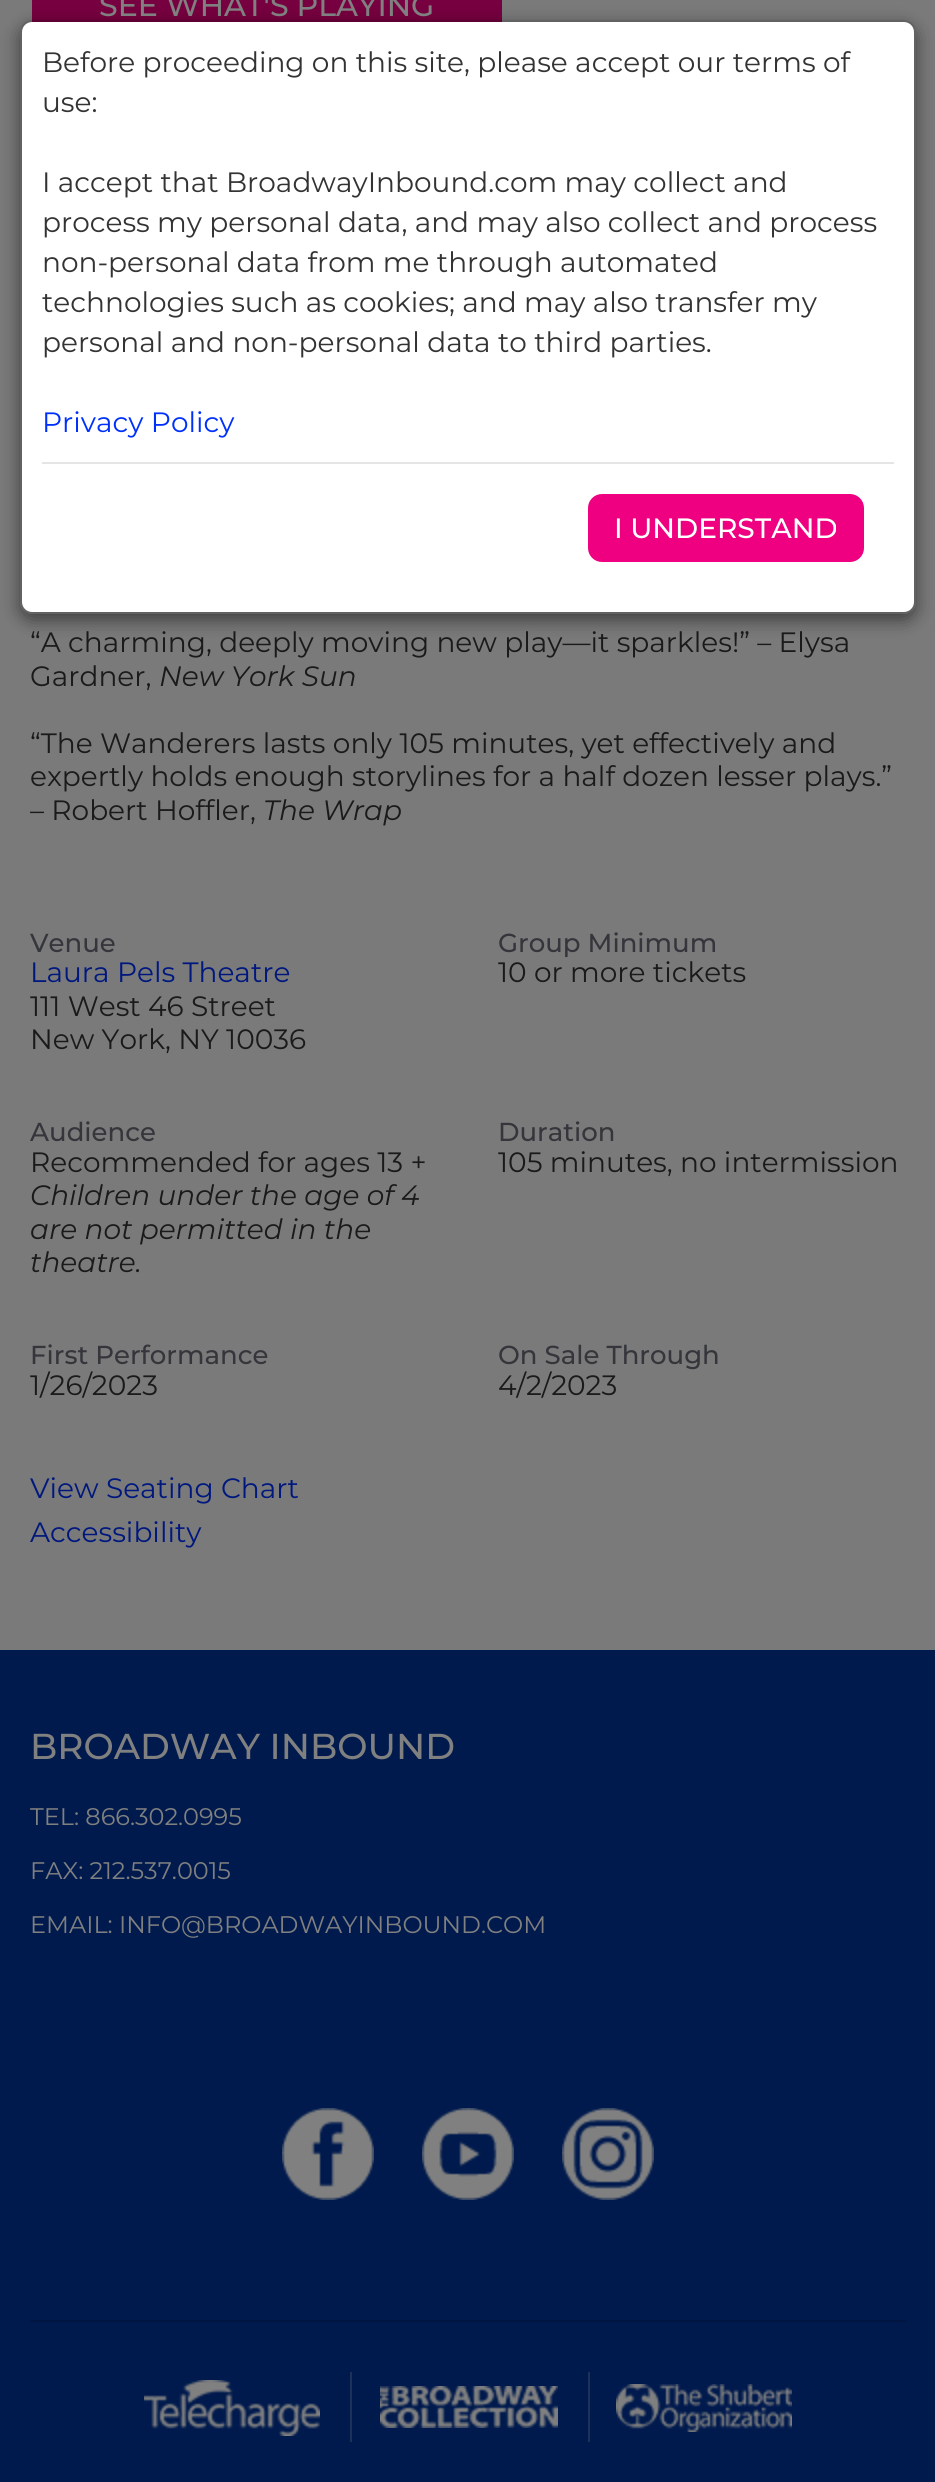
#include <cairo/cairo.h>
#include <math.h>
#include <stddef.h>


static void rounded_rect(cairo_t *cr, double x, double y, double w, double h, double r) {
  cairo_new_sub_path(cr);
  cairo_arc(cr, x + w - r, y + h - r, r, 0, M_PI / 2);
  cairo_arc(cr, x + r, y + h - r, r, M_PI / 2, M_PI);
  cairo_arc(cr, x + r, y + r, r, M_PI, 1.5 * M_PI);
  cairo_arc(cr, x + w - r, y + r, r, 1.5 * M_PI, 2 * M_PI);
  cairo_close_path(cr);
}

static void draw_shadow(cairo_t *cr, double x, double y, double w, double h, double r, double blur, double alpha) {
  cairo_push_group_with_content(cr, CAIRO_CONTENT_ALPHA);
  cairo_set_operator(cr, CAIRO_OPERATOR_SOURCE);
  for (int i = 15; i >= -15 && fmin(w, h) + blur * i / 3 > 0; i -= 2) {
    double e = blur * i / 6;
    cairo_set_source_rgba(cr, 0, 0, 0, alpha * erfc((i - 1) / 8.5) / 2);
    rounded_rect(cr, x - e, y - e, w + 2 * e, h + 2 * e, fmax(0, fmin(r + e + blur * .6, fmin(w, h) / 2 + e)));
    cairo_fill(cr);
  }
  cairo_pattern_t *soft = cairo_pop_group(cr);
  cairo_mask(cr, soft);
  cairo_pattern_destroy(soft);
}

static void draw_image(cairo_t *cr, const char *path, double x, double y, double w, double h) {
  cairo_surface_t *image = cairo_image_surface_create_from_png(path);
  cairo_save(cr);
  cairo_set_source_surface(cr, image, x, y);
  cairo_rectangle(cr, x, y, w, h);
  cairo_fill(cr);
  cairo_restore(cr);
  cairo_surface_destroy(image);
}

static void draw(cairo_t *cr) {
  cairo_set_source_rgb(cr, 122 / 255.0, 122 / 255.0, 122 / 255.0);
  cairo_paint(cr);
  cairo_set_source_rgb(cr, 119 / 255.0, 0, 64 / 255.0);
  cairo_rectangle(cr, 32, 0, 470, 22);
  cairo_fill(cr);
  cairo_save(cr);
  cairo_set_fill_rule(cr, CAIRO_FILL_RULE_EVEN_ODD);
  cairo_new_path(cr);
  cairo_move_to(cr, 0, 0);
  cairo_line_to(cr, 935, 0);
  cairo_line_to(cr, 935, 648);
  cairo_line_to(cr, 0, 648);
  cairo_close_path(cr);
  cairo_move_to(cr, 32, 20);
  cairo_line_to(cr, 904, 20);
  cairo_curve_to(cr, 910.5, 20, 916, 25.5, 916, 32);
  cairo_line_to(cr, 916, 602);
  cairo_curve_to(cr, 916, 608.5, 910.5, 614, 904, 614);
  cairo_line_to(cr, 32, 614);
  cairo_curve_to(cr, 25.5, 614, 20, 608.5, 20, 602);
  cairo_line_to(cr, 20, 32);
  cairo_curve_to(cr, 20, 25.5, 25.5, 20, 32, 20);
  cairo_close_path(cr);
  cairo_clip(cr);
  cairo_set_source_rgb(cr, 0, 0, 0);
  draw_shadow(cr, 20, 26, 896, 594, 12, 9, 0.5);
  cairo_restore(cr);
  cairo_set_source_rgb(cr, 1, 1, 1);
  rounded_rect(cr, 22, 22, 892, 590, 10);
  cairo_fill(cr);
  rounded_rect(cr, 21, 21, 894, 592, 11);
  cairo_set_source_rgba(cr, 0, 0, 0, 0.2);
  cairo_stroke(cr);
  cairo_set_source_rgb(cr, 229 / 255.0, 229 / 255.0, 229 / 255.0);
  cairo_rectangle(cr, 42, 462, 852, 2);
  cairo_fill(cr);
  cairo_set_source_rgb(cr, 238 / 255.0, 0, 128 / 255.0);
  rounded_rect(cr, 588, 494, 276, 68, 14);
  cairo_fill(cr);
  cairo_set_source_rgb(cr, 0, 26 / 255.0, 77 / 255.0);
  cairo_rectangle(cr, 0, 1650, 935, 832);
  cairo_fill(cr);
  draw_image(cr, "images/1.png", 282, 2108, 92, 92);
  draw_image(cr, "images/2.png", 422, 2108, 92, 92);
  draw_image(cr, "images/3.png", 562, 2108, 92, 92);
  cairo_set_source_rgb(cr, 0, 22 / 255.0, 64 / 255.0);
  cairo_rectangle(cr, 30, 2320, 876, 2);
  cairo_fill(cr);
  cairo_set_source_rgb(cr, 30 / 255.0, 50 / 255.0, 89 / 255.0);
  cairo_rectangle(cr, 350, 2372, 2, 70);
  cairo_fill(cr);
  draw_image(cr, "images/4.png", 144, 2380, 176, 56);
  cairo_rectangle(cr, 588, 2372, 2, 70);
  cairo_fill(cr);
  draw_image(cr, "images/5.png", 380, 2386, 178, 42);
  draw_image(cr, "images/6.png", 616, 2384, 176, 48);
  cairo_select_font_face(cr, "Montserrat Medium", CAIRO_FONT_SLANT_NORMAL, CAIRO_FONT_WEIGHT_NORMAL);
  cairo_set_font_size(cr, 30);
  cairo_set_source_rgb(cr, 128 / 255.0, 128 / 255.0, 128 / 255.0);
  cairo_move_to(cr, 99, 16);
  cairo_show_text(cr, "SEE WHAT'S PLAYING");
  cairo_select_font_face(cr, "Montserrat", CAIRO_FONT_SLANT_NORMAL, CAIRO_FONT_WEIGHT_NORMAL);
  cairo_set_font_size(cr, 28);
  cairo_set_source_rgb(cr, 26 / 255.0, 26 / 255.0, 26 / 255.0);
  cairo_move_to(cr, 30, 652);
  cairo_show_text(cr, "“A charming, deeply moving new play—it sparkles!” – Elysa");
  cairo_move_to(cr, 30, 686);
  cairo_show_text(cr, "Gardner,");
  cairo_select_font_face(cr, "Montserrat", CAIRO_FONT_SLANT_ITALIC, CAIRO_FONT_WEIGHT_NORMAL);
  cairo_move_to(cr, 159, 686);
  cairo_show_text(cr, "New York Sun");
  cairo_select_font_face(cr, "Montserrat", CAIRO_FONT_SLANT_NORMAL, CAIRO_FONT_WEIGHT_NORMAL);
  cairo_move_to(cr, 30, 753);
  cairo_show_text(cr, "“The Wanderers lasts only 105 minutes, yet effectively and");
  cairo_move_to(cr, 30, 786);
  cairo_show_text(cr, "expertly holds enough storylines for a half dozen lesser plays.”");
  cairo_move_to(cr, 30, 820);
  cairo_show_text(cr, "– Robert Hoffler,");
  cairo_select_font_face(cr, "Montserrat", CAIRO_FONT_SLANT_ITALIC, CAIRO_FONT_WEIGHT_NORMAL);
  cairo_move_to(cr, 263, 820);
  cairo_show_text(cr, "The Wrap");
  cairo_select_font_face(cr, "Montserrat Medium", CAIRO_FONT_SLANT_NORMAL, CAIRO_FONT_WEIGHT_NORMAL);
  cairo_set_font_size(cr, 26);
  cairo_set_source_rgb(cr, 53 / 255.0, 54 / 255.0, 59 / 255.0);
  cairo_move_to(cr, 30, 952);
  cairo_show_text(cr, "Venue");
  cairo_select_font_face(cr, "Montserrat", CAIRO_FONT_SLANT_NORMAL, CAIRO_FONT_WEIGHT_NORMAL);
  cairo_set_font_size(cr, 28);
  cairo_set_source_rgb(cr, 0, 24 / 255.0, 126 / 255.0);
  cairo_move_to(cr, 30, 982);
  cairo_show_text(cr, "Laura Pels Theatre");
  cairo_set_source_rgb(cr, 26 / 255.0, 26 / 255.0, 26 / 255.0);
  cairo_move_to(cr, 30, 1016);
  cairo_show_text(cr, "111 West 46 Street");
  cairo_move_to(cr, 30, 1049);
  cairo_show_text(cr, "New York, NY 10036");
  cairo_select_font_face(cr, "Montserrat Medium", CAIRO_FONT_SLANT_NORMAL, CAIRO_FONT_WEIGHT_NORMAL);
  cairo_set_font_size(cr, 26);
  cairo_set_source_rgb(cr, 53 / 255.0, 54 / 255.0, 59 / 255.0);
  cairo_move_to(cr, 498, 952);
  cairo_show_text(cr, "Group Minimum");
  cairo_select_font_face(cr, "Montserrat", CAIRO_FONT_SLANT_NORMAL, CAIRO_FONT_WEIGHT_NORMAL);
  cairo_set_font_size(cr, 28);
  cairo_set_source_rgb(cr, 26 / 255.0, 26 / 255.0, 26 / 255.0);
  cairo_move_to(cr, 498, 982);
  cairo_show_text(cr, "10 or more tickets");
  cairo_select_font_face(cr, "Montserrat Medium", CAIRO_FONT_SLANT_NORMAL, CAIRO_FONT_WEIGHT_NORMAL);
  cairo_set_font_size(cr, 26);
  cairo_set_source_rgb(cr, 53 / 255.0, 54 / 255.0, 59 / 255.0);
  cairo_move_to(cr, 30, 1141);
  cairo_show_text(cr, "Audience");
  cairo_select_font_face(cr, "Montserrat", CAIRO_FONT_SLANT_NORMAL, CAIRO_FONT_WEIGHT_NORMAL);
  cairo_set_font_size(cr, 28);
  cairo_set_source_rgb(cr, 26 / 255.0, 26 / 255.0, 26 / 255.0);
  cairo_move_to(cr, 30, 1172);
  cairo_show_text(cr, "Recommended for ages 13 +");
  cairo_select_font_face(cr, "Montserrat", CAIRO_FONT_SLANT_ITALIC, CAIRO_FONT_WEIGHT_NORMAL);
  cairo_move_to(cr, 30, 1205);
  cairo_show_text(cr, "Children under the age of 4");
  cairo_move_to(cr, 30, 1239);
  cairo_show_text(cr, "are not permitted in the");
  cairo_move_to(cr, 30, 1272);
  cairo_show_text(cr, "theatre.");
  cairo_select_font_face(cr, "Montserrat Medium", CAIRO_FONT_SLANT_NORMAL, CAIRO_FONT_WEIGHT_NORMAL);
  cairo_set_font_size(cr, 26);
  cairo_set_source_rgb(cr, 53 / 255.0, 54 / 255.0, 59 / 255.0);
  cairo_move_to(cr, 498, 1141);
  cairo_show_text(cr, "Duration");
  cairo_select_font_face(cr, "Montserrat", CAIRO_FONT_SLANT_NORMAL, CAIRO_FONT_WEIGHT_NORMAL);
  cairo_set_font_size(cr, 28);
  cairo_set_source_rgb(cr, 26 / 255.0, 26 / 255.0, 26 / 255.0);
  cairo_move_to(cr, 498, 1172);
  cairo_show_text(cr, "105 minutes, no intermission");
  cairo_select_font_face(cr, "Montserrat Medium", CAIRO_FONT_SLANT_NORMAL, CAIRO_FONT_WEIGHT_NORMAL);
  cairo_set_font_size(cr, 26);
  cairo_set_source_rgb(cr, 53 / 255.0, 54 / 255.0, 59 / 255.0);
  cairo_move_to(cr, 30, 1364);
  cairo_show_text(cr, "First Performance");
  cairo_select_font_face(cr, "Montserrat", CAIRO_FONT_SLANT_NORMAL, CAIRO_FONT_WEIGHT_NORMAL);
  cairo_set_font_size(cr, 28);
  cairo_set_source_rgb(cr, 26 / 255.0, 26 / 255.0, 26 / 255.0);
  cairo_move_to(cr, 30, 1395);
  cairo_show_text(cr, "1/26/2023");
  cairo_select_font_face(cr, "Montserrat Medium", CAIRO_FONT_SLANT_NORMAL, CAIRO_FONT_WEIGHT_NORMAL);
  cairo_set_font_size(cr, 26);
  cairo_set_source_rgb(cr, 53 / 255.0, 54 / 255.0, 59 / 255.0);
  cairo_move_to(cr, 498, 1364);
  cairo_show_text(cr, "On Sale Through");
  cairo_select_font_face(cr, "Montserrat", CAIRO_FONT_SLANT_NORMAL, CAIRO_FONT_WEIGHT_NORMAL);
  cairo_set_font_size(cr, 28);
  cairo_set_source_rgb(cr, 26 / 255.0, 26 / 255.0, 26 / 255.0);
  cairo_move_to(cr, 498, 1395);
  cairo_show_text(cr, "4/2/2023");
  cairo_set_source_rgb(cr, 0, 24 / 255.0, 126 / 255.0);
  cairo_move_to(cr, 30, 1498);
  cairo_show_text(cr, "View Seating Chart");
  cairo_move_to(cr, 30, 1542);
  cairo_show_text(cr, "Accessibility");
  cairo_set_source_rgb(cr, 51 / 255.0, 51 / 255.0, 51 / 255.0);
  cairo_move_to(cr, 42, 72);
  cairo_show_text(cr, "Before proceeding on this site, please accept our terms of");
  cairo_move_to(cr, 42, 112);
  cairo_show_text(cr, "use:");
  cairo_move_to(cr, 42, 192);
  cairo_show_text(cr, "I accept that BroadwayInbound.com may collect and");
  cairo_move_to(cr, 42, 232);
  cairo_show_text(cr, "process my personal data, and may also collect and process");
  cairo_move_to(cr, 42, 272);
  cairo_show_text(cr, "non-personal data from me through automated");
  cairo_move_to(cr, 42, 312);
  cairo_show_text(cr, "technologies such as cookies; and may also transfer my");
  cairo_move_to(cr, 42, 352);
  cairo_show_text(cr, "personal and non-personal data to third parties.");
  cairo_set_source_rgb(cr, 0, 48 / 255.0, 251 / 255.0);
  cairo_move_to(cr, 42, 432);
  cairo_show_text(cr, "Privacy Policy");
  cairo_select_font_face(cr, "Montserrat Medium", CAIRO_FONT_SLANT_NORMAL, CAIRO_FONT_WEIGHT_NORMAL);
  cairo_set_source_rgb(cr, 1, 1, 1);
  cairo_move_to(cr, 614, 538);
  cairo_show_text(cr, "I UNDERSTAND");
  cairo_set_font_size(cr, 36);
  cairo_set_source_rgb(cr, 128 / 255.0, 128 / 255.0, 128 / 255.0);
  cairo_move_to(cr, 30, 1759);
  cairo_show_text(cr, "BROADWAY INBOUND");
  cairo_select_font_face(cr, "Montserrat", CAIRO_FONT_SLANT_NORMAL, CAIRO_FONT_WEIGHT_NORMAL);
  cairo_set_font_size(cr, 24);
  cairo_move_to(cr, 30, 1825);
  cairo_show_text(cr, "TEL: 866.302.0995");
  cairo_move_to(cr, 30, 1879);
  cairo_show_text(cr, "FAX: 212.537.0015");
  cairo_move_to(cr, 30, 1933);
  cairo_show_text(cr, "EMAIL: INFO@BROADWAYINBOUND.COM");
}

int main(void) {
  cairo_surface_t *surface = cairo_image_surface_create(CAIRO_FORMAT_RGB24, 935, 2482);
  cairo_t *cr = cairo_create(surface);
  cairo_font_options_t *options = cairo_font_options_create();
  cairo_font_options_set_hint_metrics(options, CAIRO_HINT_METRICS_OFF);
  cairo_font_options_set_hint_style(options, CAIRO_HINT_STYLE_NONE);
  cairo_set_font_options(cr, options);
  cairo_set_miter_limit(cr, 4);
  draw(cr);
  cairo_surface_write_to_png(surface, "out.png");
  cairo_font_options_destroy(options);
  cairo_destroy(cr);
  cairo_surface_destroy(surface);
  return 0;
}
